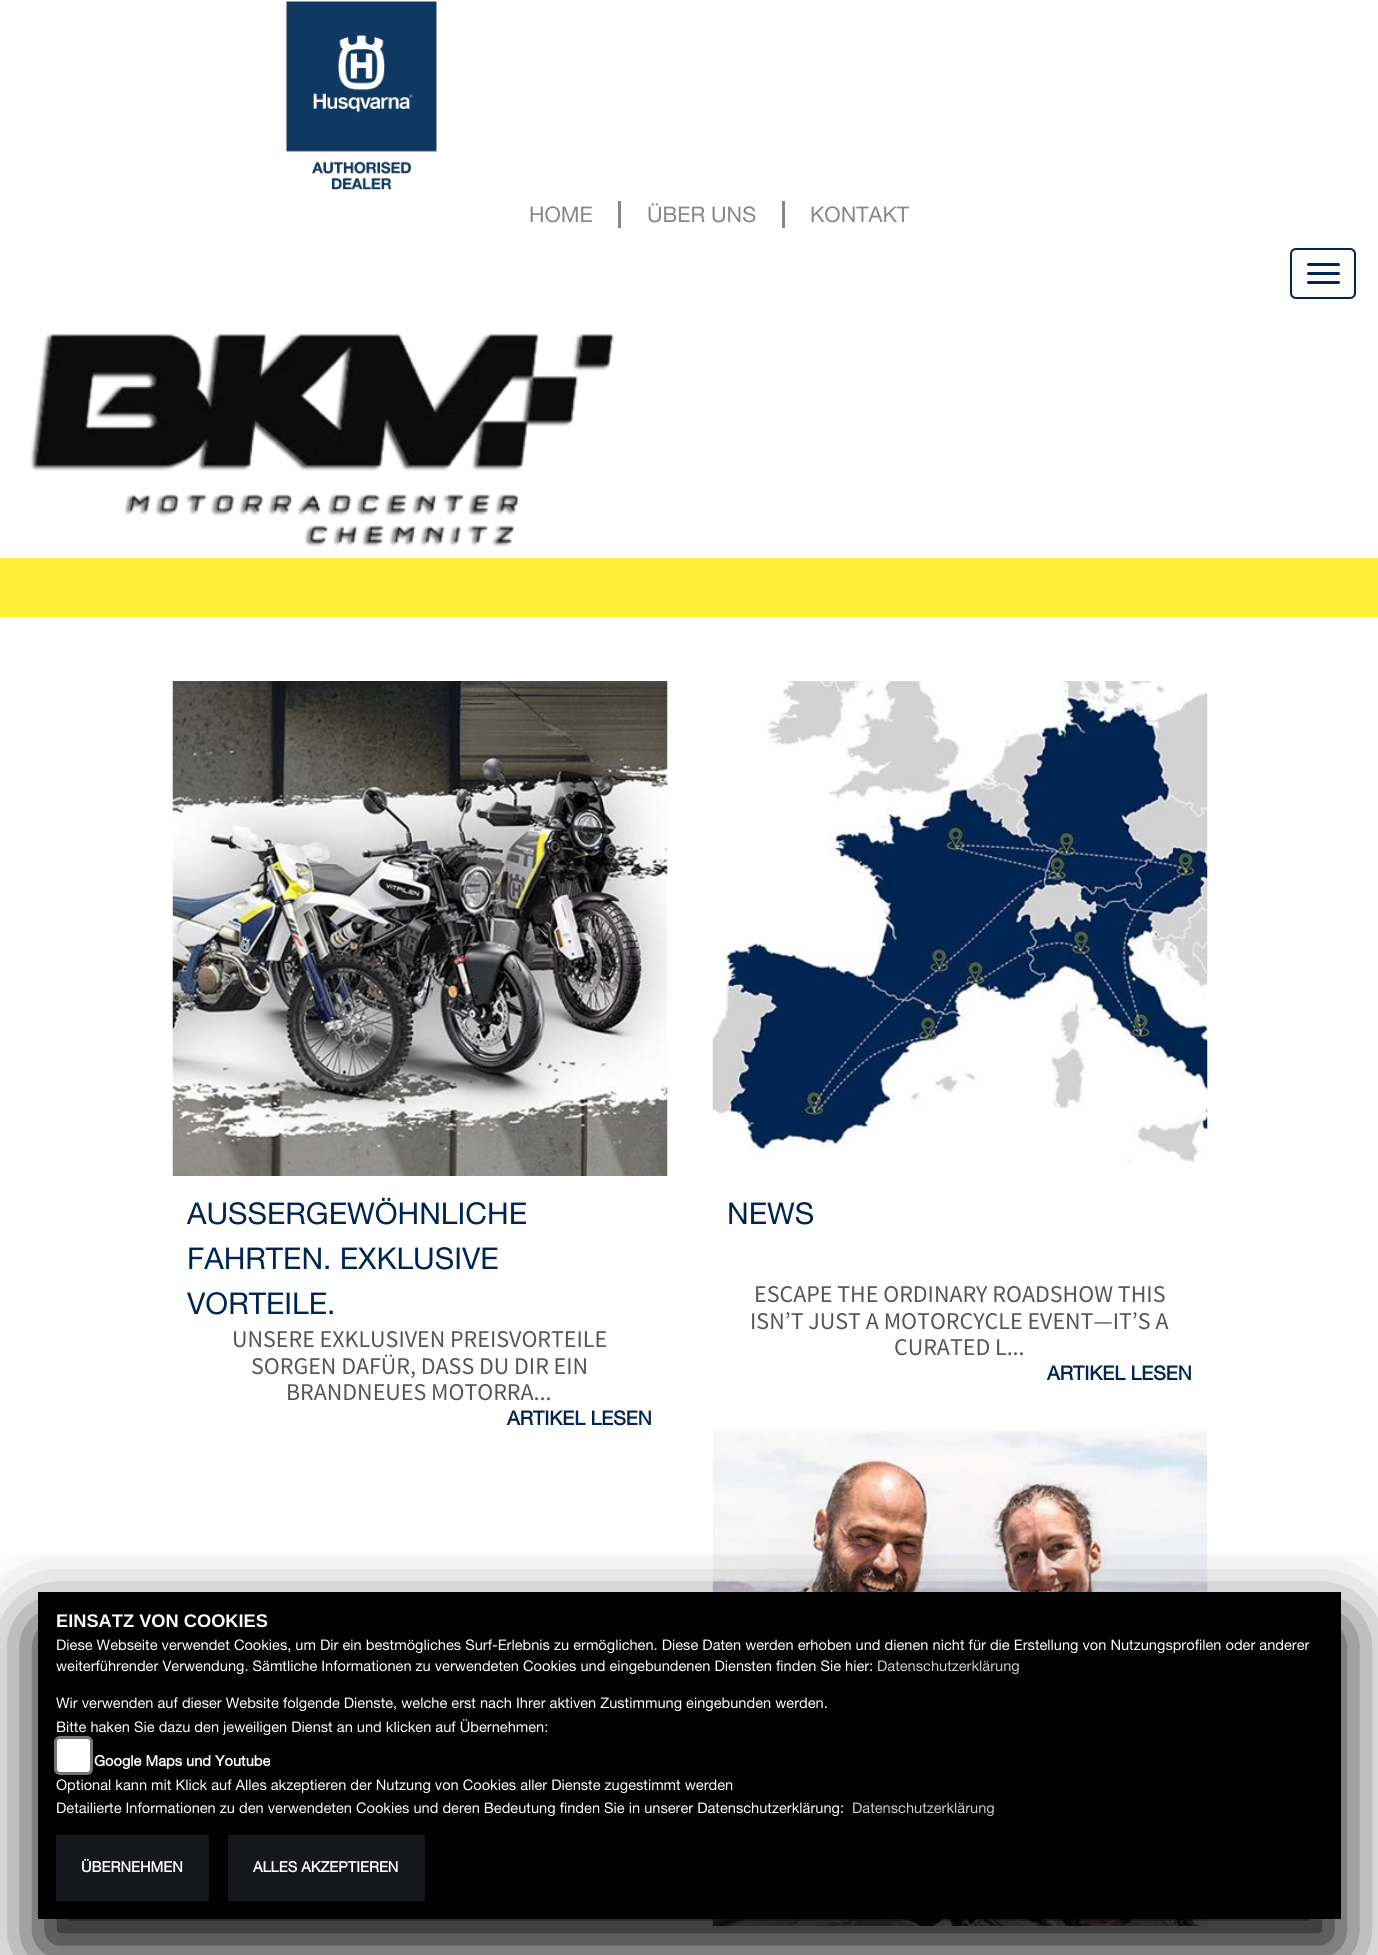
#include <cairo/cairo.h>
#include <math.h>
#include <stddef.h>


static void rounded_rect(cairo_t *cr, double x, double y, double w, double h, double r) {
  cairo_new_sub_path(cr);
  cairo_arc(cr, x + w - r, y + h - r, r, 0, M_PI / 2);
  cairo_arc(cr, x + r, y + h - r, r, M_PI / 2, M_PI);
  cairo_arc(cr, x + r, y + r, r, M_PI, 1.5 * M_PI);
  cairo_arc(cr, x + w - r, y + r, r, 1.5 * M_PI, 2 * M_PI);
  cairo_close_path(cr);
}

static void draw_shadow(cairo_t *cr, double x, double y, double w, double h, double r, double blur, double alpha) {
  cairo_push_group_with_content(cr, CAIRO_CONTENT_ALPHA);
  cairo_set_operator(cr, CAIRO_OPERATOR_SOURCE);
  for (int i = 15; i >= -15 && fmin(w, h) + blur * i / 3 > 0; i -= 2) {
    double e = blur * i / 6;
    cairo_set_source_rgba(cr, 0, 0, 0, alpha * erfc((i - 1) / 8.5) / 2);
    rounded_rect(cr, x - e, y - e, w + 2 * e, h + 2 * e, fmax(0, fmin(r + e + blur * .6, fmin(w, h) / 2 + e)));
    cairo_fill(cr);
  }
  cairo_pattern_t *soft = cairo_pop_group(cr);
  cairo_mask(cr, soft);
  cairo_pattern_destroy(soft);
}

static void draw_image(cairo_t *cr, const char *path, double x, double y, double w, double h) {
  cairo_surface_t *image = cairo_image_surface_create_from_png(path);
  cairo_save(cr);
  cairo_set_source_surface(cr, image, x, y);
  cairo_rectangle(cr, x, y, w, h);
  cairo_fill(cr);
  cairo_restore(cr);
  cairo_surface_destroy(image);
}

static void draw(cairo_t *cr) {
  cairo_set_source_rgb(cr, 1, 1, 1);
  cairo_paint(cr);
  draw_image(cr, "images/1.png", 286, 1, 151, 189);
  cairo_set_source_rgb(cr, 135 / 255.0, 135 / 255.0, 135 / 255.0);
  cairo_rectangle(cr, 618, 201, 3, 27);
  cairo_fill(cr);
  cairo_rectangle(cr, 782, 201, 3, 27);
  cairo_fill(cr);
  rounded_rect(cr, 1291, 249, 64, 49, 5);
  cairo_set_source_rgb(cr, 0, 37 / 255.0, 80 / 255.0);
  cairo_stroke(cr);
  rounded_rect(cr, 1307, 263, 33, 3, 1.5);
  cairo_fill(cr);
  rounded_rect(cr, 1307, 272, 33, 3, 1.5);
  cairo_fill(cr);
  rounded_rect(cr, 1307, 281, 33, 3, 1.5);
  cairo_fill(cr);
  draw_image(cr, "images/2.png", 30, 334, 584, 213);
  cairo_set_source_rgb(cr, 253 / 255.0, 240 / 255.0, 54 / 255.0);
  cairo_rectangle(cr, 0, 558, 1378, 59);
  cairo_fill(cr);
  draw_image(cr, "images/3.png", 172, 681, 496, 495);
  draw_image(cr, "images/4.png", 712, 681, 496, 482);
  draw_image(cr, "images/5.png", 712, 1431, 496, 495);
  cairo_save(cr);
  cairo_rectangle(cr, 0, 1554, 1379, 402);
  cairo_clip(cr);
  cairo_set_source_rgb(cr, 0, 0, 0);
  draw_shadow(cr, 38, 1625, 1303, 327, 0, 37.5, 1);
  cairo_restore(cr);
  cairo_set_source_rgb(cr, 0, 0, 0);
  cairo_rectangle(cr, 38, 1592, 1303, 327);
  cairo_fill(cr);
  cairo_set_source_rgb(cr, 1, 1, 1);
  rounded_rect(cr, 55.5, 1737.5, 36, 36, 4.5);
  cairo_fill_preserve(cr);
  cairo_set_source_rgb(cr, 118 / 255.0, 118 / 255.0, 118 / 255.0);
  cairo_set_line_width(cr, 3);
  cairo_stroke(cr);
  cairo_set_source_rgb(cr, 22 / 255.0, 23 / 255.0, 26 / 255.0);
  cairo_rectangle(cr, 56, 1835, 153, 66);
  cairo_fill(cr);
  cairo_rectangle(cr, 228, 1835, 197, 66);
  cairo_fill(cr);
  cairo_select_font_face(cr, "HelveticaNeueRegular", CAIRO_FONT_SLANT_NORMAL, CAIRO_FONT_WEIGHT_NORMAL);
  cairo_set_font_size(cr, 21.5);
  cairo_set_source_rgb(cr, 135 / 255.0, 135 / 255.0, 135 / 255.0);
  cairo_move_to(cr, 529, 222);
  cairo_show_text(cr, "HOME");
  cairo_move_to(cr, 647, 222);
  cairo_show_text(cr, "ÜBER UNS");
  cairo_move_to(cr, 810, 222);
  cairo_show_text(cr, "KONTAKT");
  cairo_set_font_size(cr, 30);
  cairo_set_source_rgb(cr, 0, 37 / 255.0, 80 / 255.0);
  cairo_move_to(cr, 187, 1224);
  cairo_show_text(cr, "AUSSERGEWÖHNLICHE");
  cairo_move_to(cr, 187, 1269);
  cairo_show_text(cr, "FAHRTEN. EXKLUSIVE");
  cairo_move_to(cr, 187, 1314);
  cairo_show_text(cr, "VORTEILE.");
  cairo_select_font_face(cr, "Source Sans Pro", CAIRO_FONT_SLANT_NORMAL, CAIRO_FONT_WEIGHT_NORMAL);
  cairo_set_font_size(cr, 24);
  cairo_set_source_rgb(cr, 85 / 255.0, 85 / 255.0, 85 / 255.0);
  cairo_move_to(cr, 232, 1347);
  cairo_show_text(cr, "UNSERE EXKLUSIVEN PREISVORTEILE");
  cairo_move_to(cr, 251, 1374);
  cairo_show_text(cr, "SORGEN DAFÜR, DASS DU DIR EIN");
  cairo_move_to(cr, 286, 1400);
  cairo_show_text(cr, "BRANDNEUES MOTORRA...");
  cairo_select_font_face(cr, "HelveticaNeueRegular", CAIRO_FONT_SLANT_NORMAL, CAIRO_FONT_WEIGHT_BOLD);
  cairo_set_font_size(cr, 19.5);
  cairo_set_source_rgb(cr, 0, 37 / 255.0, 80 / 255.0);
  cairo_move_to(cr, 507, 1425);
  cairo_show_text(cr, "ARTIKEL LESEN");
  cairo_select_font_face(cr, "HelveticaNeueRegular", CAIRO_FONT_SLANT_NORMAL, CAIRO_FONT_WEIGHT_NORMAL);
  cairo_set_font_size(cr, 30);
  cairo_move_to(cr, 727, 1224);
  cairo_show_text(cr, "NEWS");
  cairo_select_font_face(cr, "Source Sans Pro", CAIRO_FONT_SLANT_NORMAL, CAIRO_FONT_WEIGHT_NORMAL);
  cairo_set_font_size(cr, 24);
  cairo_set_source_rgb(cr, 85 / 255.0, 85 / 255.0, 85 / 255.0);
  cairo_move_to(cr, 754, 1302);
  cairo_show_text(cr, "ESCAPE THE ORDINARY ROADSHOW THIS");
  cairo_move_to(cr, 750, 1329);
  cairo_show_text(cr, "ISN’T JUST A MOTORCYCLE EVENT—IT’S A");
  cairo_move_to(cr, 894, 1355);
  cairo_show_text(cr, "CURATED L...");
  cairo_select_font_face(cr, "HelveticaNeueRegular", CAIRO_FONT_SLANT_NORMAL, CAIRO_FONT_WEIGHT_BOLD);
  cairo_set_font_size(cr, 19.5);
  cairo_set_source_rgb(cr, 0, 37 / 255.0, 80 / 255.0);
  cairo_move_to(cr, 1047, 1380);
  cairo_show_text(cr, "ARTIKEL LESEN");
  cairo_select_font_face(cr, "Liberation Sans", CAIRO_FONT_SLANT_NORMAL, CAIRO_FONT_WEIGHT_BOLD);
  cairo_set_font_size(cr, 18.25);
  cairo_set_source_rgb(cr, 1, 1, 1);
  cairo_move_to(cr, 56, 1627);
  cairo_show_text(cr, "EINSATZ VON COOKIES");
  cairo_select_font_face(cr, "HelveticaNeueRegular", CAIRO_FONT_SLANT_NORMAL, CAIRO_FONT_WEIGHT_NORMAL);
  cairo_set_font_size(cr, 14.62);
  cairo_move_to(cr, 56, 1650);
  cairo_show_text(cr, "Diese Webseite verwendet Cookies, um Dir ein bestmögliches Surf-Erlebnis zu ermöglichen. Diese Daten werden erhoben und dienen nicht für die Erstellung von Nutzungsprofilen oder anderer");
  cairo_move_to(cr, 56, 1671);
  cairo_show_text(cr, "weiterführender Verwendung. Sämtliche Informationen zu verwendeten Cookies und eingebundenen Diensten finden Sie hier:");
  cairo_set_source_rgb(cr, 204 / 255.0, 204 / 255.0, 204 / 255.0);
  cairo_move_to(cr, 877, 1671);
  cairo_show_text(cr, "Datenschutzerklärung");
  cairo_set_source_rgb(cr, 1, 1, 1);
  cairo_move_to(cr, 56, 1708);
  cairo_show_text(cr, "Wir verwenden auf dieser Website folgende Dienste, welche erst nach Ihrer aktiven Zustimmung eingebunden werden.");
  cairo_move_to(cr, 56, 1732);
  cairo_show_text(cr, "Bitte haken Sie dazu den jeweiligen Dienst an und klicken auf Übernehmen:");
  cairo_select_font_face(cr, "HelveticaNeueRegular", CAIRO_FONT_SLANT_NORMAL, CAIRO_FONT_WEIGHT_BOLD);
  cairo_move_to(cr, 94, 1766);
  cairo_show_text(cr, "Google Maps und Youtube");
  cairo_select_font_face(cr, "HelveticaNeueRegular", CAIRO_FONT_SLANT_NORMAL, CAIRO_FONT_WEIGHT_NORMAL);
  cairo_move_to(cr, 56, 1790);
  cairo_show_text(cr, "Optional kann mit Klick auf Alles akzeptieren der Nutzung von Cookies aller Dienste zugestimmt werden");
  cairo_move_to(cr, 56, 1813);
  cairo_show_text(cr, "Detailierte Informationen zu den verwendeten Cookies und deren Bedeutung finden Sie in unserer Datenschutzerklärung:");
  cairo_set_source_rgb(cr, 204 / 255.0, 204 / 255.0, 204 / 255.0);
  cairo_move_to(cr, 852, 1813);
  cairo_show_text(cr, "Datenschutzerklärung");
  cairo_select_font_face(cr, "HelveticaNeueRegular", CAIRO_FONT_SLANT_NORMAL, CAIRO_FONT_WEIGHT_BOLD);
  cairo_set_source_rgb(cr, 1, 1, 1);
  cairo_move_to(cr, 81, 1872);
  cairo_show_text(cr, "ÜBERNEHMEN");
  cairo_move_to(cr, 253, 1872);
  cairo_show_text(cr, "ALLES AKZEPTIEREN");
}

int main(void) {
  cairo_surface_t *surface = cairo_image_surface_create(CAIRO_FORMAT_RGB24, 1378, 1955);
  cairo_t *cr = cairo_create(surface);
  cairo_font_options_t *options = cairo_font_options_create();
  cairo_font_options_set_hint_metrics(options, CAIRO_HINT_METRICS_OFF);
  cairo_font_options_set_hint_style(options, CAIRO_HINT_STYLE_NONE);
  cairo_set_font_options(cr, options);
  cairo_set_miter_limit(cr, 4);
  draw(cr);
  cairo_surface_write_to_png(surface, "out.png");
  cairo_font_options_destroy(options);
  cairo_destroy(cr);
  cairo_surface_destroy(surface);
  return 0;
}
